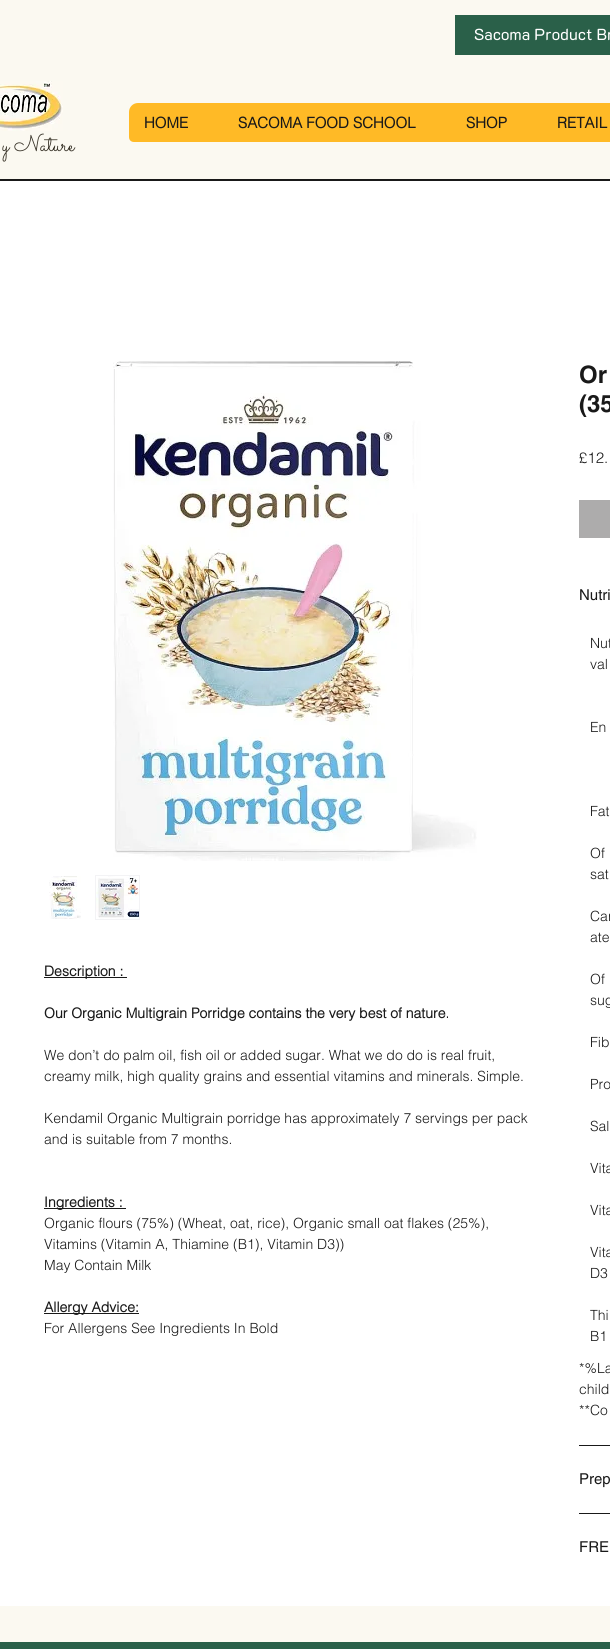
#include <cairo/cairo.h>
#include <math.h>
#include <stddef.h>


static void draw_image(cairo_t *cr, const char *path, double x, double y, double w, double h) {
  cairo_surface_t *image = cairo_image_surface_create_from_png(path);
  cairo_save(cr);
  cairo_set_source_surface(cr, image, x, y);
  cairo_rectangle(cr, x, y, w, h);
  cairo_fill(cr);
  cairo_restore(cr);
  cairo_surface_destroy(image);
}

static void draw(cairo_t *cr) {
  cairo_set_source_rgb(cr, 251 / 255.0, 249 / 255.0, 241 / 255.0);
  cairo_paint(cr);
  cairo_set_source_rgb(cr, 42 / 255.0, 96 / 255.0, 73 / 255.0);
  cairo_rectangle(cr, 455, 15, 155, 40);
  cairo_fill(cr);
  draw_image(cr, "images/1.png", 0, 81, 63, 50);
  cairo_set_source_rgb(cr, 1, 186 / 255.0, 38 / 255.0);
  cairo_new_path(cr);
  cairo_move_to(cr, 138, 103);
  cairo_line_to(cr, 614, 103);
  cairo_curve_to(cr, 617, 103, 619, 105, 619, 108);
  cairo_line_to(cr, 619, 137);
  cairo_curve_to(cr, 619, 140, 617, 142, 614, 142);
  cairo_line_to(cr, 134, 142);
  cairo_curve_to(cr, 131, 142, 129, 140, 129, 137);
  cairo_line_to(cr, 129, 112);
  cairo_curve_to(cr, 129, 107, 133, 103, 138, 103);
  cairo_close_path(cr);
  cairo_fill(cr);
  cairo_set_source_rgb(cr, 25 / 255.0, 25 / 255.0, 25 / 255.0);
  cairo_rectangle(cr, 0, 179, 610, 2);
  cairo_fill(cr);
  cairo_set_source_rgb(cr, 1, 1, 1);
  cairo_rectangle(cr, 0, 181, 610, 1425);
  cairo_fill(cr);
  draw_image(cr, "images/2.png", 113, 361, 364, 500);
  draw_image(cr, "images/3.png", 49, 876, 32, 43);
  cairo_rectangle(cr, 95.5, 875.5, 44, 44);
  cairo_set_source_rgb(cr, 243 / 255.0, 243 / 255.0, 245 / 255.0);
  cairo_set_line_width(cr, 1);
  cairo_stroke(cr);
  draw_image(cr, "images/4.png", 96, 876, 43, 43);
  cairo_set_source_rgb(cr, 25 / 255.0, 25 / 255.0, 25 / 255.0);
  cairo_rectangle(cr, 44, 977, 83, 1);
  cairo_fill(cr);
  cairo_rectangle(cr, 44, 1208, 82, 1);
  cairo_fill(cr);
  cairo_rectangle(cr, 44, 1313, 95, 1);
  cairo_fill(cr);
  cairo_set_source_rgb(cr, 173 / 255.0, 172 / 255.0, 172 / 255.0);
  cairo_rectangle(cr, 579, 500, 31, 38);
  cairo_fill(cr);
  cairo_set_source_rgb(cr, 25 / 255.0, 25 / 255.0, 25 / 255.0);
  cairo_rectangle(cr, 579, 1445, 31, 1);
  cairo_fill(cr);
  cairo_rectangle(cr, 579, 1513, 31, 1);
  cairo_fill(cr);
  cairo_set_source_rgb(cr, 42 / 255.0, 96 / 255.0, 73 / 255.0);
  cairo_rectangle(cr, 0, 1642, 610, 7);
  cairo_fill(cr);
  cairo_select_font_face(cr, "K2D", CAIRO_FONT_SLANT_NORMAL, CAIRO_FONT_WEIGHT_NORMAL);
  cairo_set_font_size(cr, 16);
  cairo_set_source_rgb(cr, 1, 1, 1);
  cairo_move_to(cr, 474, 40);
  cairo_show_text(cr, "Sacoma Product Br");
  cairo_select_font_face(cr, "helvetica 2", CAIRO_FONT_SLANT_NORMAL, CAIRO_FONT_WEIGHT_BOLD);
  cairo_set_font_size(cr, 15);
  cairo_set_source_rgb(cr, 25 / 255.0, 25 / 255.0, 25 / 255.0);
  cairo_move_to(cr, 144, 128);
  cairo_show_text(cr, "HOME");
  cairo_move_to(cr, 238, 128);
  cairo_show_text(cr, "SACOMA FOOD SCHOOL");
  cairo_move_to(cr, 466, 128);
  cairo_show_text(cr, "SHOP");
  cairo_move_to(cr, 557, 128);
  cairo_show_text(cr, "RETAIL");
  cairo_select_font_face(cr, "Sacramento", CAIRO_FONT_SLANT_NORMAL, CAIRO_FONT_WEIGHT_NORMAL);
  cairo_set_font_size(cr, 23);
  cairo_set_source_rgb(cr, 54 / 255.0, 49 / 255.0, 38 / 255.0);
  cairo_move_to(cr, 2, 151);
  cairo_show_text(cr, "y Nature");
  cairo_select_font_face(cr, "helvetica 2", CAIRO_FONT_SLANT_NORMAL, CAIRO_FONT_WEIGHT_BOLD);
  cairo_set_font_size(cr, 14);
  cairo_set_source_rgb(cr, 25 / 255.0, 25 / 255.0, 25 / 255.0);
  cairo_move_to(cr, 44, 976);
  cairo_show_text(cr, "Description :");
  cairo_move_to(cr, 44, 1018);
  cairo_show_text(cr, "Our Organic Multigrain Porridge contains the very best of nature.");
  cairo_select_font_face(cr, "helvetica Light", CAIRO_FONT_SLANT_NORMAL, CAIRO_FONT_WEIGHT_NORMAL);
  cairo_move_to(cr, 44, 1060);
  cairo_show_text(cr, "We don’t do palm oil, fish oil or added sugar. What we do do is real fruit,");
  cairo_move_to(cr, 44, 1081);
  cairo_show_text(cr, "creamy milk, high quality grains and essential vitamins and minerals. Simple.");
  cairo_move_to(cr, 44, 1123);
  cairo_show_text(cr, "Kendamil Organic Multigrain porridge has approximately 7 servings per pack");
  cairo_move_to(cr, 44, 1144);
  cairo_show_text(cr, "and is suitable from 7 months.");
  cairo_select_font_face(cr, "helvetica 2", CAIRO_FONT_SLANT_NORMAL, CAIRO_FONT_WEIGHT_BOLD);
  cairo_move_to(cr, 44, 1207);
  cairo_show_text(cr, "Ingredients :");
  cairo_select_font_face(cr, "helvetica Light", CAIRO_FONT_SLANT_NORMAL, CAIRO_FONT_WEIGHT_NORMAL);
  cairo_move_to(cr, 44, 1228);
  cairo_show_text(cr, "Organic flours (75%) (Wheat, oat, rice), Organic small oat flakes (25%),");
  cairo_move_to(cr, 44, 1249);
  cairo_show_text(cr, "Vitamins (Vitamin A, Thiamine (B1), Vitamin D3))");
  cairo_move_to(cr, 44, 1270);
  cairo_show_text(cr, "May Contain Milk");
  cairo_select_font_face(cr, "helvetica 2", CAIRO_FONT_SLANT_NORMAL, CAIRO_FONT_WEIGHT_BOLD);
  cairo_move_to(cr, 44, 1312);
  cairo_show_text(cr, "Allergy Advice:");
  cairo_select_font_face(cr, "helvetica Light", CAIRO_FONT_SLANT_NORMAL, CAIRO_FONT_WEIGHT_NORMAL);
  cairo_move_to(cr, 44, 1333);
  cairo_show_text(cr, "For Allergens See Ingredients In Bold");
  cairo_select_font_face(cr, "helvetica", CAIRO_FONT_SLANT_NORMAL, CAIRO_FONT_WEIGHT_BOLD);
  cairo_set_font_size(cr, 24);
  cairo_move_to(cr, 579, 383);
  cairo_show_text(cr, "Or");
  cairo_move_to(cr, 579, 412);
  cairo_show_text(cr, "(35");
  cairo_select_font_face(cr, "helvetica Light", CAIRO_FONT_SLANT_NORMAL, CAIRO_FONT_WEIGHT_NORMAL);
  cairo_set_font_size(cr, 15);
  cairo_move_to(cr, 579, 463);
  cairo_show_text(cr, "£12.");
  cairo_select_font_face(cr, "helvetica", CAIRO_FONT_SLANT_NORMAL, CAIRO_FONT_WEIGHT_NORMAL);
  cairo_move_to(cr, 579, 600);
  cairo_show_text(cr, "Nutri");
  cairo_select_font_face(cr, "helvetica Light", CAIRO_FONT_SLANT_NORMAL, CAIRO_FONT_WEIGHT_NORMAL);
  cairo_set_font_size(cr, 14);
  cairo_move_to(cr, 590, 648);
  cairo_show_text(cr, "Nut");
  cairo_move_to(cr, 590, 669);
  cairo_show_text(cr, "val");
  cairo_move_to(cr, 590, 732);
  cairo_show_text(cr, "En");
  cairo_move_to(cr, 590, 816);
  cairo_show_text(cr, "Fat");
  cairo_move_to(cr, 590, 858);
  cairo_show_text(cr, "Of");
  cairo_move_to(cr, 590, 879);
  cairo_show_text(cr, "sat");
  cairo_move_to(cr, 590, 921);
  cairo_show_text(cr, "Car");
  cairo_move_to(cr, 590, 942);
  cairo_show_text(cr, "ate");
  cairo_move_to(cr, 590, 984);
  cairo_show_text(cr, "Of");
  cairo_move_to(cr, 590, 1005);
  cairo_show_text(cr, "sug");
  cairo_move_to(cr, 590, 1047);
  cairo_show_text(cr, "Fib");
  cairo_move_to(cr, 590, 1089);
  cairo_show_text(cr, "Pro");
  cairo_move_to(cr, 590, 1131);
  cairo_show_text(cr, "Sal");
  cairo_move_to(cr, 590, 1173);
  cairo_show_text(cr, "Vita");
  cairo_move_to(cr, 590, 1215);
  cairo_show_text(cr, "Vita");
  cairo_move_to(cr, 590, 1257);
  cairo_show_text(cr, "Vita");
  cairo_move_to(cr, 590, 1278);
  cairo_show_text(cr, "D3");
  cairo_move_to(cr, 590, 1320);
  cairo_show_text(cr, "Thi");
  cairo_move_to(cr, 590, 1341);
  cairo_show_text(cr, "B1");
  cairo_move_to(cr, 579, 1373);
  cairo_show_text(cr, "*%La");
  cairo_move_to(cr, 579, 1394);
  cairo_show_text(cr, "child");
  cairo_move_to(cr, 579, 1415);
  cairo_show_text(cr, "**Co");
  cairo_select_font_face(cr, "helvetica", CAIRO_FONT_SLANT_NORMAL, CAIRO_FONT_WEIGHT_NORMAL);
  cairo_set_font_size(cr, 15);
  cairo_move_to(cr, 579, 1484);
  cairo_show_text(cr, "Prep");
  cairo_move_to(cr, 579, 1552);
  cairo_show_text(cr, "FRE");
}

int main(void) {
  cairo_surface_t *surface = cairo_image_surface_create(CAIRO_FORMAT_RGB24, 610, 1649);
  cairo_t *cr = cairo_create(surface);
  cairo_font_options_t *options = cairo_font_options_create();
  cairo_font_options_set_hint_metrics(options, CAIRO_HINT_METRICS_OFF);
  cairo_font_options_set_hint_style(options, CAIRO_HINT_STYLE_NONE);
  cairo_set_font_options(cr, options);
  cairo_set_miter_limit(cr, 4);
  draw(cr);
  cairo_surface_write_to_png(surface, "out.png");
  cairo_font_options_destroy(options);
  cairo_destroy(cr);
  cairo_surface_destroy(surface);
  return 0;
}
